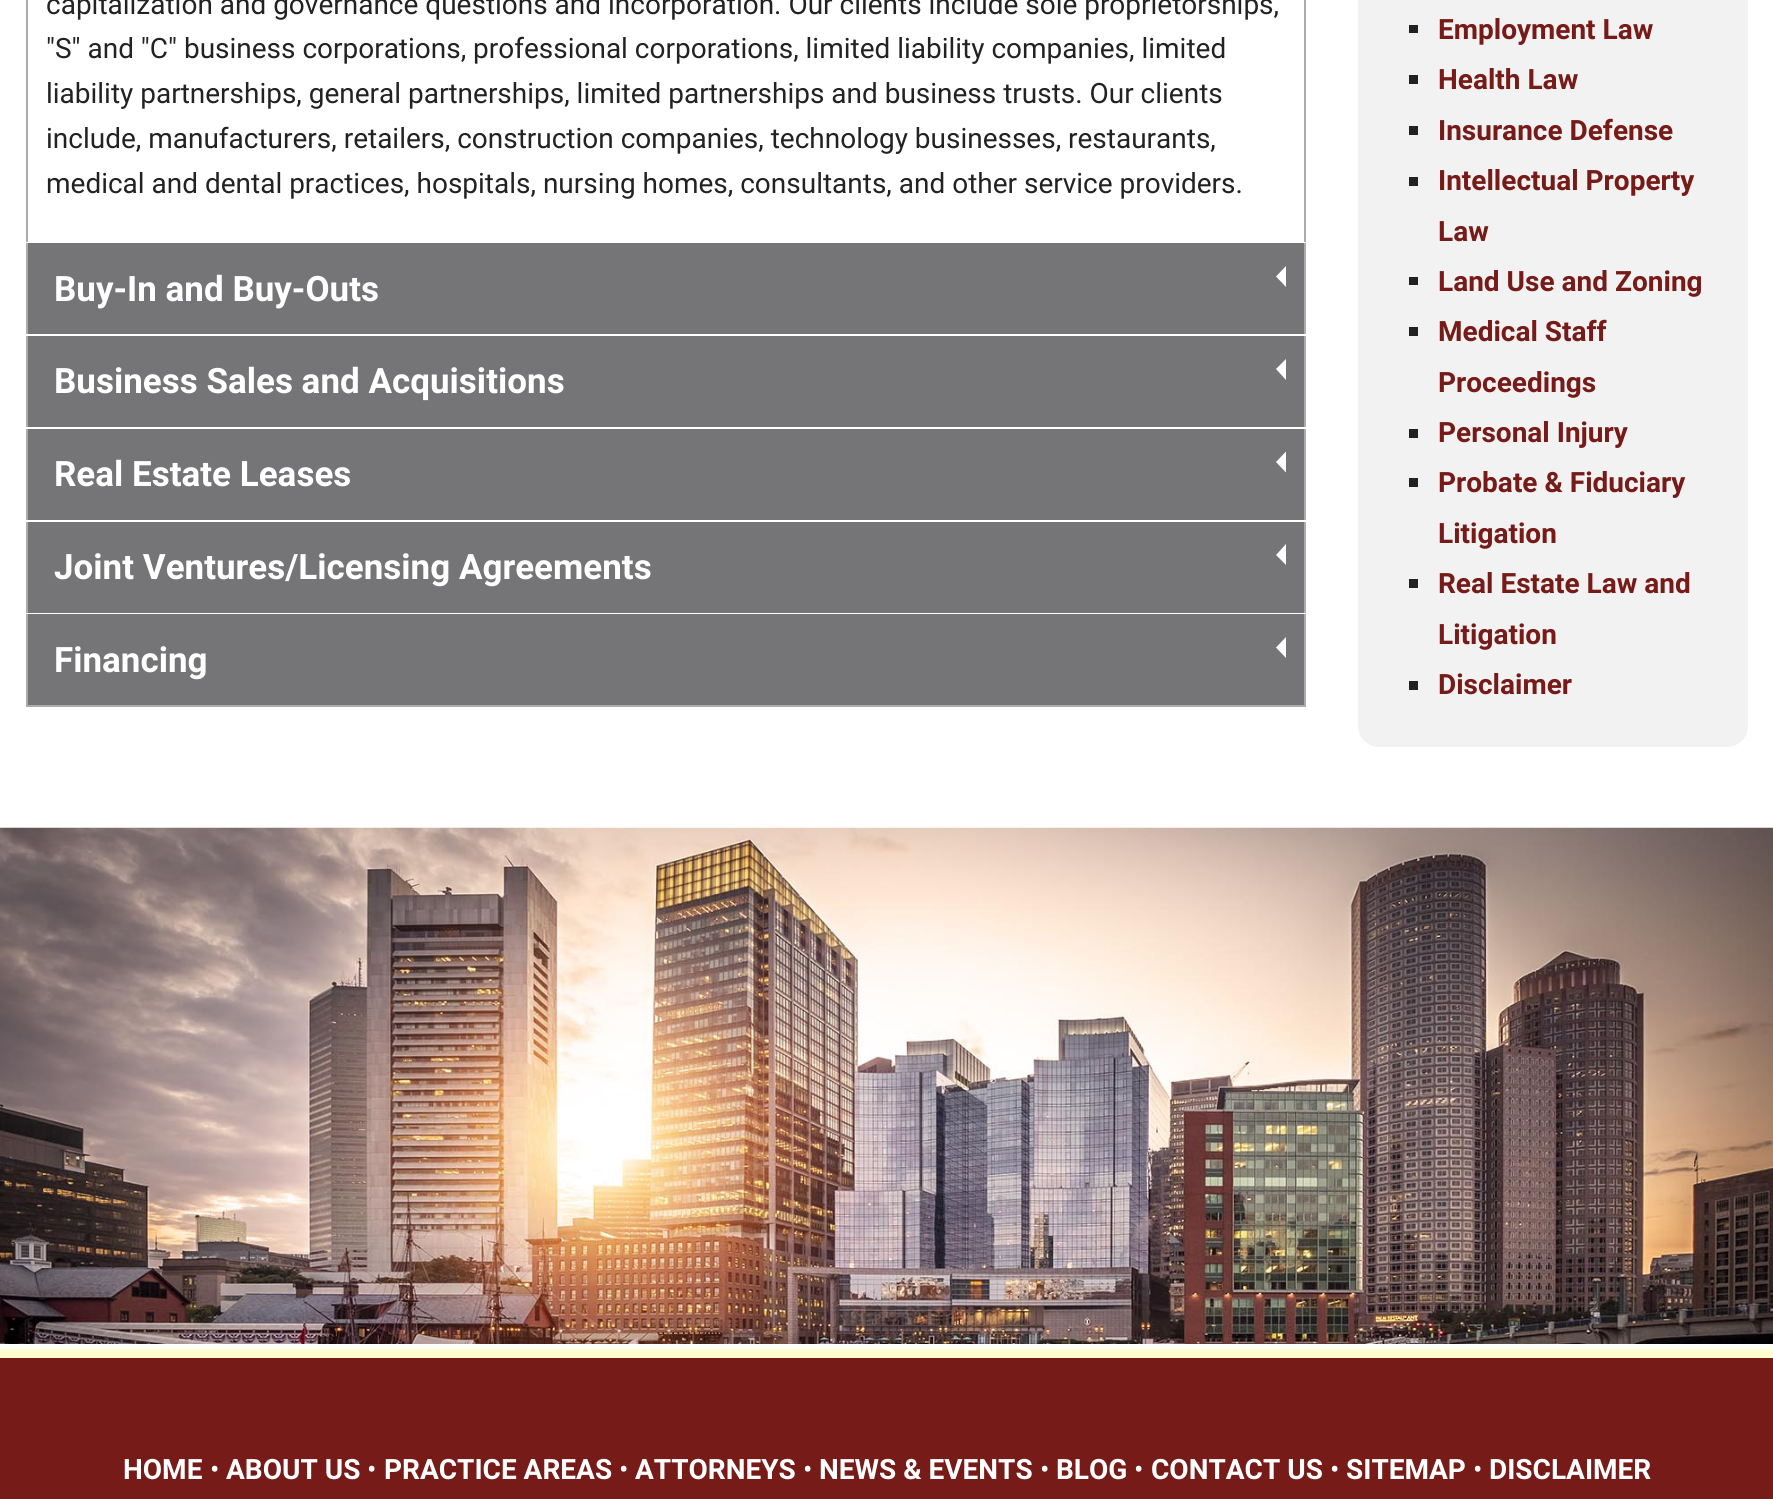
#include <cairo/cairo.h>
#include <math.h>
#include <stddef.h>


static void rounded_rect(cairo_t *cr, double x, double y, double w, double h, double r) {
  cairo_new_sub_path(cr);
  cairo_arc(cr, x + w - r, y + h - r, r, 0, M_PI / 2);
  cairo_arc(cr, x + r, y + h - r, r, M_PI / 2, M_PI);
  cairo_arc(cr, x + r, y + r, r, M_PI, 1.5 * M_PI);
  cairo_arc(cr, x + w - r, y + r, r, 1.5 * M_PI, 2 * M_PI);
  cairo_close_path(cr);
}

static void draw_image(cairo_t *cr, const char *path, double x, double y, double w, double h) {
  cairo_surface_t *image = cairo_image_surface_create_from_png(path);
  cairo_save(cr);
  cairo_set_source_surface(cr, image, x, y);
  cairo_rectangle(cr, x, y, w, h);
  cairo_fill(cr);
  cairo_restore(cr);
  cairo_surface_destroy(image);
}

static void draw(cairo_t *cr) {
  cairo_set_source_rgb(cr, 1, 1, 1);
  cairo_paint(cr);
  cairo_set_source_rgb(cr, 171 / 255.0, 171 / 255.0, 171 / 255.0);
  cairo_rectangle(cr, 26, 705, 1280, 2);
  cairo_fill(cr);
  cairo_rectangle(cr, 1304, 0, 2, 242);
  cairo_fill(cr);
  cairo_rectangle(cr, 26, 0, 2, 242);
  cairo_fill(cr);
  cairo_set_source_rgb(cr, 117 / 255.0, 117 / 255.0, 119 / 255.0);
  cairo_rectangle(cr, 28, 243, 1276, 91);
  cairo_fill(cr);
  cairo_set_source_rgb(cr, 171 / 255.0, 171 / 255.0, 171 / 255.0);
  cairo_rectangle(cr, 1304, 243, 2, 91);
  cairo_fill(cr);
  cairo_rectangle(cr, 26, 243, 2, 91);
  cairo_fill(cr);
  cairo_set_source_rgb(cr, 1, 1, 1);
  cairo_new_path(cr);
  cairo_move_to(cr, 1286, 266);
  cairo_line_to(cr, 1286, 287);
  cairo_line_to(cr, 1276, 276.5);
  cairo_close_path(cr);
  cairo_fill(cr);
  cairo_set_source_rgb(cr, 117 / 255.0, 117 / 255.0, 119 / 255.0);
  cairo_rectangle(cr, 28, 336, 1276, 91);
  cairo_fill(cr);
  cairo_set_source_rgb(cr, 171 / 255.0, 171 / 255.0, 171 / 255.0);
  cairo_rectangle(cr, 1304, 336, 2, 91);
  cairo_fill(cr);
  cairo_rectangle(cr, 26, 336, 2, 91);
  cairo_fill(cr);
  cairo_set_source_rgb(cr, 1, 1, 1);
  cairo_new_path(cr);
  cairo_move_to(cr, 1286, 359);
  cairo_line_to(cr, 1286, 380);
  cairo_line_to(cr, 1276, 369);
  cairo_close_path(cr);
  cairo_fill(cr);
  cairo_set_source_rgb(cr, 117 / 255.0, 117 / 255.0, 119 / 255.0);
  cairo_rectangle(cr, 28, 429, 1276, 91);
  cairo_fill(cr);
  cairo_set_source_rgb(cr, 171 / 255.0, 171 / 255.0, 171 / 255.0);
  cairo_rectangle(cr, 1304, 429, 2, 91);
  cairo_fill(cr);
  cairo_rectangle(cr, 26, 429, 2, 91);
  cairo_fill(cr);
  cairo_set_source_rgb(cr, 1, 1, 1);
  cairo_new_path(cr);
  cairo_move_to(cr, 1286, 451.5);
  cairo_line_to(cr, 1286, 472.5);
  cairo_line_to(cr, 1276, 462);
  cairo_close_path(cr);
  cairo_fill(cr);
  cairo_set_source_rgb(cr, 117 / 255.0, 117 / 255.0, 119 / 255.0);
  cairo_rectangle(cr, 28, 522, 1276, 91);
  cairo_fill(cr);
  cairo_set_source_rgb(cr, 171 / 255.0, 171 / 255.0, 171 / 255.0);
  cairo_rectangle(cr, 1304, 522, 2, 91);
  cairo_fill(cr);
  cairo_rectangle(cr, 26, 522, 2, 91);
  cairo_fill(cr);
  cairo_set_source_rgb(cr, 1, 1, 1);
  cairo_new_path(cr);
  cairo_move_to(cr, 1286, 544);
  cairo_line_to(cr, 1286, 565);
  cairo_line_to(cr, 1276, 555);
  cairo_close_path(cr);
  cairo_fill(cr);
  cairo_set_source_rgb(cr, 117 / 255.0, 117 / 255.0, 119 / 255.0);
  cairo_rectangle(cr, 28, 614, 1276, 91);
  cairo_fill(cr);
  cairo_set_source_rgb(cr, 171 / 255.0, 171 / 255.0, 171 / 255.0);
  cairo_rectangle(cr, 1304, 614, 2, 91);
  cairo_fill(cr);
  cairo_rectangle(cr, 26, 614, 2, 91);
  cairo_fill(cr);
  cairo_set_source_rgb(cr, 1, 1, 1);
  cairo_new_path(cr);
  cairo_move_to(cr, 1286, 637);
  cairo_line_to(cr, 1286, 658);
  cairo_line_to(cr, 1276, 647.5);
  cairo_close_path(cr);
  cairo_fill(cr);
  cairo_set_source_rgb(cr, 242 / 255.0, 242 / 255.0, 242 / 255.0);
  rounded_rect(cr, 1359, -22, 388, 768, 20);
  cairo_fill_preserve(cr);
  cairo_stroke(cr);
  cairo_set_source_rgb(cr, 34 / 255.0, 34 / 255.0, 34 / 255.0);
  cairo_rectangle(cr, 1409, 25, 9, 8);
  cairo_fill(cr);
  cairo_rectangle(cr, 1409, 75, 9, 9);
  cairo_fill(cr);
  cairo_rectangle(cr, 1409, 126, 9, 9);
  cairo_fill(cr);
  cairo_rectangle(cr, 1409, 177, 9, 9);
  cairo_fill(cr);
  cairo_rectangle(cr, 1409, 277, 9, 8);
  cairo_fill(cr);
  cairo_rectangle(cr, 1409, 327, 9, 9);
  cairo_fill(cr);
  cairo_rectangle(cr, 1409, 429, 9, 9);
  cairo_fill(cr);
  cairo_rectangle(cr, 1409, 478, 9, 9);
  cairo_fill(cr);
  cairo_rectangle(cr, 1409, 579, 9, 9);
  cairo_fill(cr);
  cairo_rectangle(cr, 1409, 681, 9, 9);
  cairo_fill(cr);
  draw_image(cr, "images/1.png", 0, 827, 1773, 517);
  cairo_set_source_rgb(cr, 118 / 255.0, 27 / 255.0, 24 / 255.0);
  cairo_rectangle(cr, 0, 1358, 1773, 141);
  cairo_fill(cr);
  cairo_set_source_rgb(cr, 1, 1, 205 / 255.0);
  cairo_rectangle(cr, 0, 1349, 1773, 9);
  cairo_fill(cr);
  cairo_select_font_face(cr, "Roboto", CAIRO_FONT_SLANT_NORMAL, CAIRO_FONT_WEIGHT_NORMAL);
  cairo_set_font_size(cr, 28);
  cairo_set_source_rgb(cr, 34 / 255.0, 34 / 255.0, 34 / 255.0);
  cairo_move_to(cr, 46, 14);
  cairo_show_text(cr, "capitalization and governance questions and incorporation. Our clients include sole proprietorships,");
  cairo_move_to(cr, 46, 58);
  cairo_show_text(cr, "\"S\" and \"C\" business corporations, professional corporations, limited liability companies, limited");
  cairo_move_to(cr, 46, 103);
  cairo_show_text(cr, "liability partnerships, general partnerships, limited partnerships and business trusts. Our clients");
  cairo_move_to(cr, 46, 148);
  cairo_show_text(cr, "include, manufacturers, retailers, construction companies, technology businesses, restaurants,");
  cairo_move_to(cr, 46, 193);
  cairo_show_text(cr, "medical and dental practices, hospitals, nursing homes, consultants, and other service providers.");
  cairo_select_font_face(cr, "Roboto", CAIRO_FONT_SLANT_NORMAL, CAIRO_FONT_WEIGHT_BOLD);
  cairo_set_font_size(cr, 35);
  cairo_set_source_rgb(cr, 1, 1, 1);
  cairo_move_to(cr, 54, 301);
  cairo_show_text(cr, "Buy-In and Buy-Outs");
  cairo_move_to(cr, 54, 393);
  cairo_show_text(cr, "Business Sales and Acquisitions");
  cairo_move_to(cr, 54, 486);
  cairo_show_text(cr, "Real Estate Leases");
  cairo_move_to(cr, 54, 579);
  cairo_show_text(cr, "Joint Ventures/Licensing Agreements");
  cairo_move_to(cr, 54, 672);
  cairo_show_text(cr, "Financing");
  cairo_set_font_size(cr, 28);
  cairo_set_source_rgb(cr, 118 / 255.0, 27 / 255.0, 24 / 255.0);
  cairo_move_to(cr, 1438, 39);
  cairo_show_text(cr, "Employment Law");
  cairo_move_to(cr, 1438, 89);
  cairo_show_text(cr, "Health Law");
  cairo_move_to(cr, 1438, 140);
  cairo_show_text(cr, "Insurance Defense");
  cairo_move_to(cr, 1438, 190);
  cairo_show_text(cr, "Intellectual Property");
  cairo_move_to(cr, 1438, 241);
  cairo_show_text(cr, "Law");
  cairo_move_to(cr, 1438, 291);
  cairo_show_text(cr, "Land Use and Zoning");
  cairo_move_to(cr, 1438, 341);
  cairo_show_text(cr, "Medical Staff");
  cairo_move_to(cr, 1438, 392);
  cairo_show_text(cr, "Proceedings");
  cairo_move_to(cr, 1438, 442);
  cairo_show_text(cr, "Personal Injury");
  cairo_move_to(cr, 1438, 492);
  cairo_show_text(cr, "Probate & Fiduciary");
  cairo_move_to(cr, 1438, 543);
  cairo_show_text(cr, "Litigation");
  cairo_move_to(cr, 1438, 593);
  cairo_show_text(cr, "Real Estate Law and");
  cairo_move_to(cr, 1438, 644);
  cairo_show_text(cr, "Litigation");
  cairo_move_to(cr, 1438, 694);
  cairo_show_text(cr, "Disclaimer");
  cairo_set_source_rgb(cr, 1, 1, 1);
  cairo_move_to(cr, 123, 1479);
  cairo_show_text(cr, "HOME");
  cairo_select_font_face(cr, "Roboto", CAIRO_FONT_SLANT_NORMAL, CAIRO_FONT_WEIGHT_NORMAL);
  cairo_move_to(cr, 210, 1479);
  cairo_show_text(cr, "•");
  cairo_select_font_face(cr, "Roboto", CAIRO_FONT_SLANT_NORMAL, CAIRO_FONT_WEIGHT_BOLD);
  cairo_move_to(cr, 226, 1479);
  cairo_show_text(cr, "ABOUT US");
  cairo_select_font_face(cr, "Roboto", CAIRO_FONT_SLANT_NORMAL, CAIRO_FONT_WEIGHT_NORMAL);
  cairo_move_to(cr, 367, 1479);
  cairo_show_text(cr, "•");
  cairo_select_font_face(cr, "Roboto", CAIRO_FONT_SLANT_NORMAL, CAIRO_FONT_WEIGHT_BOLD);
  cairo_move_to(cr, 384, 1479);
  cairo_show_text(cr, "PRACTICE AREAS");
  cairo_select_font_face(cr, "Roboto", CAIRO_FONT_SLANT_NORMAL, CAIRO_FONT_WEIGHT_NORMAL);
  cairo_move_to(cr, 619, 1479);
  cairo_show_text(cr, "•");
  cairo_select_font_face(cr, "Roboto", CAIRO_FONT_SLANT_NORMAL, CAIRO_FONT_WEIGHT_BOLD);
  cairo_move_to(cr, 635, 1479);
  cairo_show_text(cr, "ATTORNEYS");
  cairo_select_font_face(cr, "Roboto", CAIRO_FONT_SLANT_NORMAL, CAIRO_FONT_WEIGHT_NORMAL);
  cairo_move_to(cr, 803, 1479);
  cairo_show_text(cr, "•");
  cairo_select_font_face(cr, "Roboto", CAIRO_FONT_SLANT_NORMAL, CAIRO_FONT_WEIGHT_BOLD);
  cairo_move_to(cr, 819, 1479);
  cairo_show_text(cr, "NEWS & EVENTS");
  cairo_select_font_face(cr, "Roboto", CAIRO_FONT_SLANT_NORMAL, CAIRO_FONT_WEIGHT_NORMAL);
  cairo_move_to(cr, 1040, 1479);
  cairo_show_text(cr, "•");
  cairo_select_font_face(cr, "Roboto", CAIRO_FONT_SLANT_NORMAL, CAIRO_FONT_WEIGHT_BOLD);
  cairo_move_to(cr, 1056, 1479);
  cairo_show_text(cr, "BLOG");
  cairo_select_font_face(cr, "Roboto", CAIRO_FONT_SLANT_NORMAL, CAIRO_FONT_WEIGHT_NORMAL);
  cairo_move_to(cr, 1134, 1479);
  cairo_show_text(cr, "•");
  cairo_select_font_face(cr, "Roboto", CAIRO_FONT_SLANT_NORMAL, CAIRO_FONT_WEIGHT_BOLD);
  cairo_move_to(cr, 1151, 1479);
  cairo_show_text(cr, "CONTACT US");
  cairo_select_font_face(cr, "Roboto", CAIRO_FONT_SLANT_NORMAL, CAIRO_FONT_WEIGHT_NORMAL);
  cairo_move_to(cr, 1330, 1479);
  cairo_show_text(cr, "•");
  cairo_select_font_face(cr, "Roboto", CAIRO_FONT_SLANT_NORMAL, CAIRO_FONT_WEIGHT_BOLD);
  cairo_move_to(cr, 1346, 1479);
  cairo_show_text(cr, "SITEMAP");
  cairo_select_font_face(cr, "Roboto", CAIRO_FONT_SLANT_NORMAL, CAIRO_FONT_WEIGHT_NORMAL);
  cairo_move_to(cr, 1473, 1479);
  cairo_show_text(cr, "•");
  cairo_select_font_face(cr, "Roboto", CAIRO_FONT_SLANT_NORMAL, CAIRO_FONT_WEIGHT_BOLD);
  cairo_move_to(cr, 1489, 1479);
  cairo_show_text(cr, "DISCLAIMER");
}

int main(void) {
  cairo_surface_t *surface = cairo_image_surface_create(CAIRO_FORMAT_RGB24, 1773, 1499);
  cairo_t *cr = cairo_create(surface);
  cairo_font_options_t *options = cairo_font_options_create();
  cairo_font_options_set_hint_metrics(options, CAIRO_HINT_METRICS_OFF);
  cairo_font_options_set_hint_style(options, CAIRO_HINT_STYLE_NONE);
  cairo_set_font_options(cr, options);
  cairo_set_miter_limit(cr, 4);
  draw(cr);
  cairo_surface_write_to_png(surface, "out.png");
  cairo_font_options_destroy(options);
  cairo_destroy(cr);
  cairo_surface_destroy(surface);
  return 0;
}
